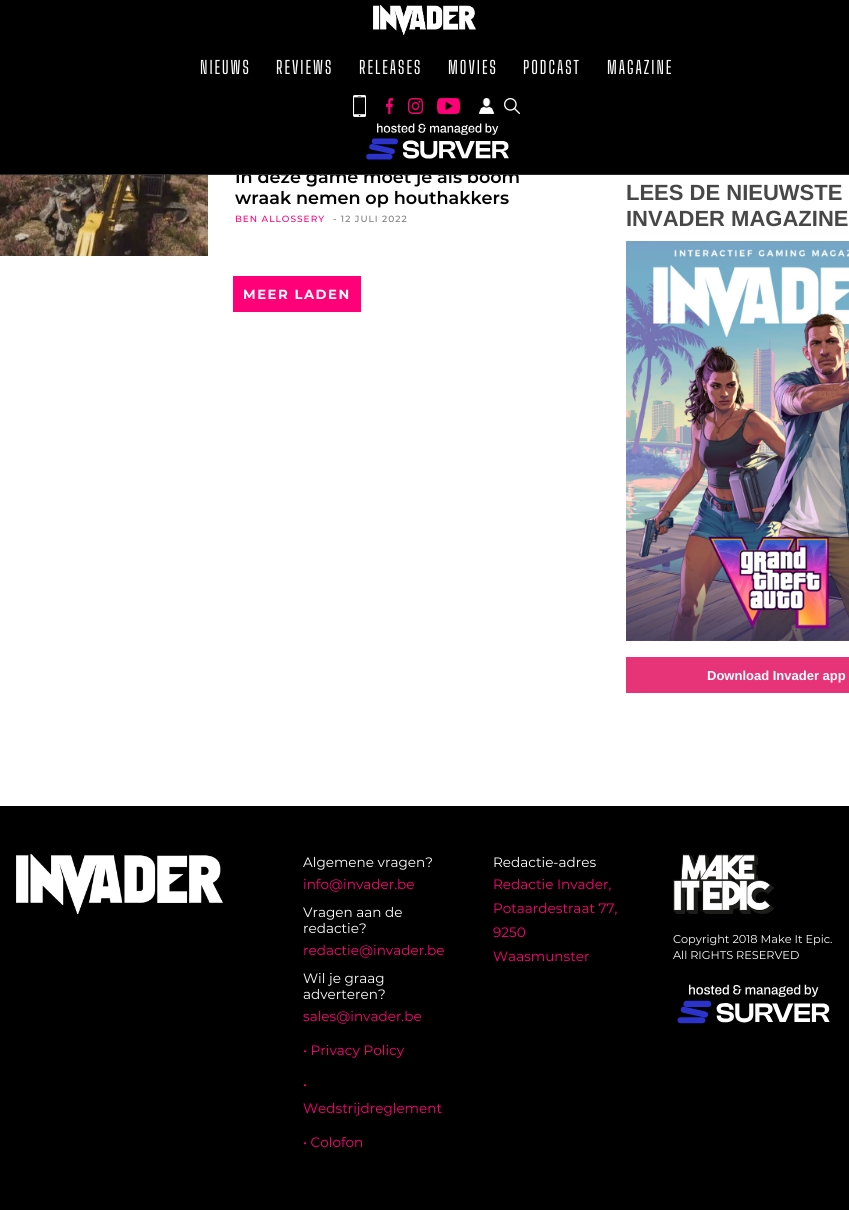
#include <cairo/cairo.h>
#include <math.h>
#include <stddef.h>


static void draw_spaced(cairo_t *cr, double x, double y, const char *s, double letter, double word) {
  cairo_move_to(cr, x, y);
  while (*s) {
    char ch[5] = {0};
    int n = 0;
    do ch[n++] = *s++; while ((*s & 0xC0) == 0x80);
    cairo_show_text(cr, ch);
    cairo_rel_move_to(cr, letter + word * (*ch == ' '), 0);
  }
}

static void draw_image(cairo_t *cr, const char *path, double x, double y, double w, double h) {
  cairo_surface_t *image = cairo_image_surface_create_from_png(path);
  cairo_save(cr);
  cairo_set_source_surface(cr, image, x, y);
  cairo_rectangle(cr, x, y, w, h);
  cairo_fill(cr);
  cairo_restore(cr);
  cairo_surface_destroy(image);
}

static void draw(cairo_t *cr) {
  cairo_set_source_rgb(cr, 1, 1, 1);
  cairo_paint(cr);
  cairo_set_source_rgb(cr, 0, 0, 0);
  cairo_rectangle(cr, 0, 0, 849, 174);
  cairo_fill(cr);
  draw_image(cr, "images/1.png", 373, 5, 103, 30);
  draw_image(cr, "images/2.png", 353, 95, 13, 22);
  draw_image(cr, "images/3.png", 386, 98, 7, 16);
  draw_image(cr, "images/4.png", 408, 98, 15, 16);
  draw_image(cr, "images/5.png", 437, 98, 23, 16);
  draw_image(cr, "images/6.png", 479, 98, 15, 16);
  draw_image(cr, "images/7.png", 504, 98, 16, 16);
  draw_image(cr, "images/8.png", 366, 123, 143, 37);
  draw_image(cr, "images/9.png", 0, 175, 208, 81);
  cairo_set_source_rgb(cr, 1, 0, 120 / 255.0);
  cairo_rectangle(cr, 233, 276, 128, 36);
  cairo_fill(cr);
  draw_image(cr, "images/10.png", 626, 241, 223, 400);
  cairo_set_source_rgb(cr, 231 / 255.0, 52 / 255.0, 120 / 255.0);
  cairo_rectangle(cr, 626, 657, 223, 36);
  cairo_fill(cr);
  cairo_set_source_rgb(cr, 0, 0, 0);
  cairo_rectangle(cr, 0, 806, 849, 404);
  cairo_fill(cr);
  draw_image(cr, "images/11.png", 16, 854, 207, 60);
  draw_image(cr, "images/12.png", 673, 854, 101, 60);
  draw_image(cr, "images/13.png", 677, 984, 153, 40);
  cairo_select_font_face(cr, "Big Shoulders Display Medium", CAIRO_FONT_SLANT_NORMAL, CAIRO_FONT_WEIGHT_NORMAL);
  cairo_set_font_size(cr, 17.6);
  cairo_set_source_rgb(cr, 1, 1, 1);
  draw_spaced(cr, 200, 74, "NIEUWS", 2, 0);
  draw_spaced(cr, 276, 74, "REVIEWS", 2, 0);
  draw_spaced(cr, 359, 74, "RELEASES", 2, 0);
  draw_spaced(cr, 448, 74, "MOVIES", 2, 0);
  draw_spaced(cr, 523, 74, "PODCAST", 2, 0);
  draw_spaced(cr, 607, 74, "MAGAZINE", 2, 0);
  cairo_select_font_face(cr, "Montserrat SemiBold", CAIRO_FONT_SLANT_NORMAL, CAIRO_FONT_WEIGHT_NORMAL);
  cairo_set_source_rgb(cr, 0, 0, 0);
  cairo_move_to(cr, 235, 183);
  cairo_show_text(cr, "In deze game moet je als boom");
  cairo_set_source_rgb(cr, 42 / 255.0, 42 / 255.0, 42 / 255.0);
  cairo_rectangle(cr, 0, 174, 849, 1);
  cairo_fill(cr);
  cairo_set_source_rgb(cr, 0, 0, 0);
  cairo_move_to(cr, 235, 204);
  cairo_show_text(cr, "wraak nemen op houthakkers");
  cairo_select_font_face(cr, "Montserrat Medium", CAIRO_FONT_SLANT_NORMAL, CAIRO_FONT_WEIGHT_NORMAL);
  cairo_set_font_size(cr, 9);
  cairo_set_source_rgb(cr, 1, 0, 120 / 255.0);
  draw_spaced(cr, 235, 222, "BEN ALLOSSERY", 1, 0);
  cairo_set_source_rgb(cr, 124 / 255.0, 124 / 255.0, 124 / 255.0);
  draw_spaced(cr, 333, 222, "- 12 JULI 2022", 1, 0);
  cairo_select_font_face(cr, "Montserrat", CAIRO_FONT_SLANT_NORMAL, CAIRO_FONT_WEIGHT_BOLD);
  cairo_set_font_size(cr, 13.25);
  cairo_set_source_rgb(cr, 1, 1, 1);
  draw_spaced(cr, 243, 299, "MEER LADEN", 1.5, 0);
  cairo_select_font_face(cr, "Liberation Sans", CAIRO_FONT_SLANT_NORMAL, CAIRO_FONT_WEIGHT_BOLD);
  cairo_set_font_size(cr, 22);
  cairo_set_source_rgb(cr, 71 / 255.0, 71 / 255.0, 71 / 255.0);
  cairo_move_to(cr, 626, 200);
  cairo_show_text(cr, "LEES DE NIEUWSTE");
  cairo_move_to(cr, 626, 226);
  cairo_show_text(cr, "INVADER MAGAZINE");
  cairo_set_font_size(cr, 13);
  cairo_set_source_rgb(cr, 1, 1, 1);
  cairo_move_to(cr, 707, 680);
  cairo_show_text(cr, "Download Invader app");
  cairo_select_font_face(cr, "Montserrat", CAIRO_FONT_SLANT_NORMAL, CAIRO_FONT_WEIGHT_NORMAL);
  cairo_set_font_size(cr, 13.6);
  cairo_move_to(cr, 303, 867);
  cairo_show_text(cr, "Algemene vragen?");
  cairo_set_source_rgb(cr, 1, 0, 120 / 255.0);
  cairo_move_to(cr, 303, 889);
  cairo_show_text(cr, "info@invader.be");
  cairo_set_source_rgb(cr, 1, 1, 1);
  cairo_move_to(cr, 303, 917);
  cairo_show_text(cr, "Vragen aan de");
  cairo_move_to(cr, 303, 933);
  cairo_show_text(cr, "redactie?");
  cairo_set_source_rgb(cr, 1, 0, 120 / 255.0);
  cairo_move_to(cr, 303, 955);
  cairo_show_text(cr, "redactie@invader.be");
  cairo_set_source_rgb(cr, 1, 1, 1);
  cairo_move_to(cr, 303, 983);
  cairo_show_text(cr, "Wil je graag");
  cairo_move_to(cr, 303, 999);
  cairo_show_text(cr, "adverteren?");
  cairo_set_source_rgb(cr, 1, 0, 120 / 255.0);
  cairo_move_to(cr, 303, 1021);
  cairo_show_text(cr, "sales@invader.be");
  cairo_move_to(cr, 303, 1055);
  cairo_show_text(cr, "• Privacy Policy");
  cairo_move_to(cr, 303, 1089);
  cairo_show_text(cr, "•");
  cairo_move_to(cr, 303, 1113);
  cairo_show_text(cr, "Wedstrijdreglement");
  cairo_move_to(cr, 303, 1147);
  cairo_show_text(cr, "• Colofon");
  cairo_set_source_rgb(cr, 1, 1, 1);
  cairo_move_to(cr, 493, 867);
  cairo_show_text(cr, "Redactie-adres");
  cairo_set_source_rgb(cr, 1, 0, 120 / 255.0);
  cairo_move_to(cr, 493, 889);
  cairo_show_text(cr, "Redactie Invader,");
  cairo_move_to(cr, 493, 913);
  cairo_show_text(cr, "Potaardestraat 77,");
  cairo_move_to(cr, 493, 937);
  cairo_show_text(cr, "9250");
  cairo_move_to(cr, 493, 961);
  cairo_show_text(cr, "Waasmunster");
  cairo_set_font_size(cr, 11.3);
  cairo_set_source_rgb(cr, 1, 1, 1);
  cairo_move_to(cr, 673, 943);
  cairo_show_text(cr, "Copyright 2018 Make It Epic.");
  cairo_move_to(cr, 673, 959);
  cairo_show_text(cr, "All RIGHTS RESERVED");
}

int main(void) {
  cairo_surface_t *surface = cairo_image_surface_create(CAIRO_FORMAT_RGB24, 849, 1210);
  cairo_t *cr = cairo_create(surface);
  cairo_font_options_t *options = cairo_font_options_create();
  cairo_font_options_set_hint_metrics(options, CAIRO_HINT_METRICS_OFF);
  cairo_font_options_set_hint_style(options, CAIRO_HINT_STYLE_NONE);
  cairo_set_font_options(cr, options);
  cairo_set_miter_limit(cr, 4);
  draw(cr);
  cairo_surface_write_to_png(surface, "out.png");
  cairo_font_options_destroy(options);
  cairo_destroy(cr);
  cairo_surface_destroy(surface);
  return 0;
}
